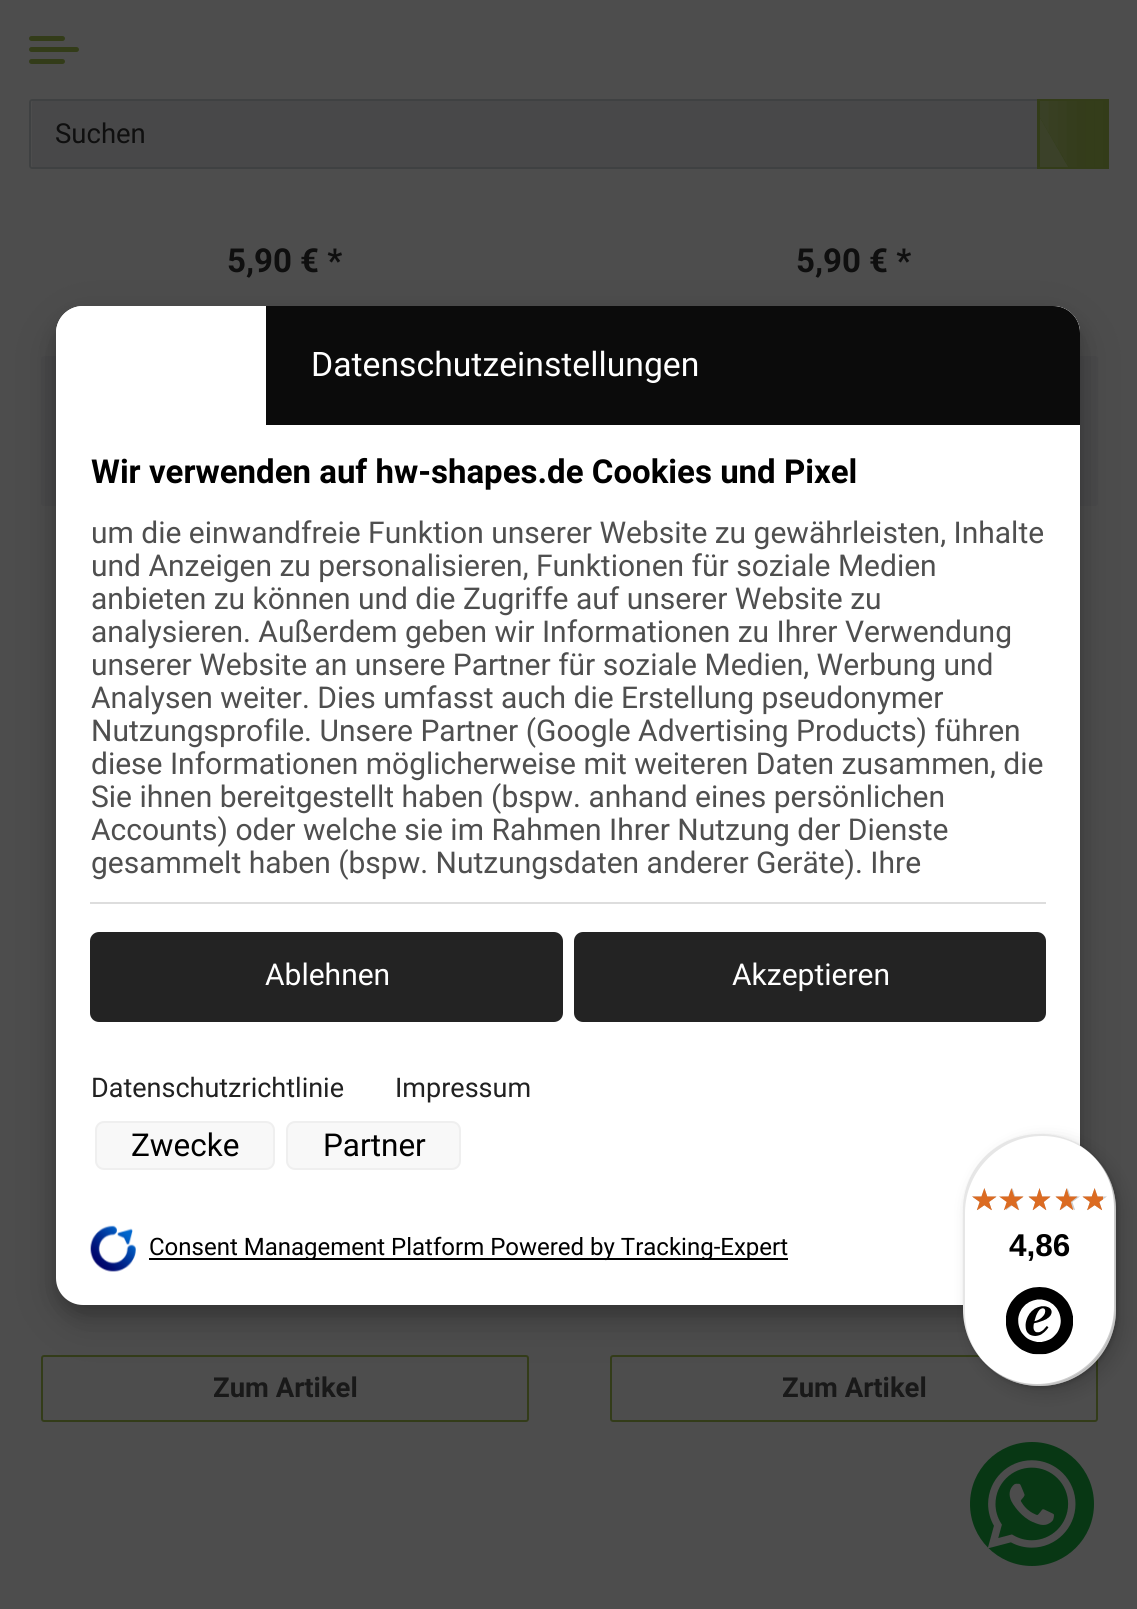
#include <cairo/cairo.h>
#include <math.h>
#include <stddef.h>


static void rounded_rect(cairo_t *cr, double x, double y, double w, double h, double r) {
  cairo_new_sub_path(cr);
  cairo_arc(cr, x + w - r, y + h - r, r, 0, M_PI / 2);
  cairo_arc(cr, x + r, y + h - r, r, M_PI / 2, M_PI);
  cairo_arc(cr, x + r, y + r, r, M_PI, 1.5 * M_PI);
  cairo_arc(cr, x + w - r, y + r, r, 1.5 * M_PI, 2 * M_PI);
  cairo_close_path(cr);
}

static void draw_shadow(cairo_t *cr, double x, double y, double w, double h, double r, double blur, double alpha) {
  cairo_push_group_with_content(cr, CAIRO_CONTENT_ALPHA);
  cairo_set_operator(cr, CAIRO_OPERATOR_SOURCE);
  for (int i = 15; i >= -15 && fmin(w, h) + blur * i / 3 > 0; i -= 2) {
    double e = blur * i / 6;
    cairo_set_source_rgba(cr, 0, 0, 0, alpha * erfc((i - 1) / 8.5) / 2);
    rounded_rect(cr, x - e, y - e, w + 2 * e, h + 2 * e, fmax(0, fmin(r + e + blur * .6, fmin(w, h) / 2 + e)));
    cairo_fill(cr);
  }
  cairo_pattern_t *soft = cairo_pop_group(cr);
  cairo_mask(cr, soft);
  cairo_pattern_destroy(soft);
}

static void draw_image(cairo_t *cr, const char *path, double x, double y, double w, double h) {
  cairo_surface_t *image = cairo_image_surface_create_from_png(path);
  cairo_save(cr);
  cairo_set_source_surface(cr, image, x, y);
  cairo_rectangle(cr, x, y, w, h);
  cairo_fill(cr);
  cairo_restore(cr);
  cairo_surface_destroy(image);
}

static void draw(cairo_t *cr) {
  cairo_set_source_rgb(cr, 77 / 255.0, 77 / 255.0, 77 / 255.0);
  cairo_paint(cr);
  cairo_set_source_rgb(cr, 51 / 255.0, 60 / 255.0, 25 / 255.0);
  rounded_rect(cr, 29, 47, 50, 5, 2.5);
  cairo_fill(cr);
  rounded_rect(cr, 29, 36, 36, 5, 2.5);
  cairo_fill(cr);
  rounded_rect(cr, 29, 59, 36, 5, 2.5);
  cairo_fill(cr);
  cairo_set_source_rgb(cr, 72 / 255.0, 72 / 255.0, 73 / 255.0);
  cairo_new_path(cr);
  cairo_move_to(cr, 33, 101);
  cairo_line_to(cr, 1037, 101);
  cairo_line_to(cr, 1037, 167);
  cairo_line_to(cr, 33, 167);
  cairo_curve_to(cr, 32.5, 167, 32, 166.5, 32, 166);
  cairo_line_to(cr, 32, 102);
  cairo_curve_to(cr, 32, 101.5, 32.5, 101, 33, 101);
  cairo_close_path(cr);
  cairo_fill(cr);
  cairo_new_path(cr);
  cairo_move_to(cr, 32, 100);
  cairo_line_to(cr, 1039, 100);
  cairo_line_to(cr, 1039, 168);
  cairo_line_to(cr, 32, 168);
  cairo_curve_to(cr, 31, 168, 30, 167, 30, 166);
  cairo_line_to(cr, 30, 102);
  cairo_curve_to(cr, 30, 101, 31, 100, 32, 100);
  cairo_close_path(cr);
  cairo_set_source_rgb(cr, 63 / 255.0, 65 / 255.0, 66 / 255.0);
  cairo_stroke(cr);
  cairo_set_source_rgb(cr, 51 / 255.0, 60 / 255.0, 25 / 255.0);
  cairo_rectangle(cr, 1037, 99, 72, 70);
  cairo_fill(cr);
  cairo_save(cr);
  cairo_rectangle(cr, 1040, 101, 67, 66);
  cairo_clip(cr);
  cairo_set_fill_rule(cr, CAIRO_FILL_RULE_EVEN_ODD);
  cairo_new_path(cr);
  cairo_move_to(cr, 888, 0);
  cairo_line_to(cr, 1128, 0);
  cairo_line_to(cr, 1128, 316);
  cairo_line_to(cr, 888, 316);
  cairo_close_path(cr);
  cairo_move_to(cr, 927.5, 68.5);
  cairo_line_to(cr, 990.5, 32);
  cairo_line_to(cr, 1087.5, 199.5);
  cairo_line_to(cr, 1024, 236);
  cairo_close_path(cr);
  cairo_clip(cr);
  cairo_set_source_rgb(cr, 77 / 255.0, 77 / 255.0, 77 / 255.0);
  draw_shadow(cr, 972, 38, 72, 194, 0, 27.5, 0.5);
  cairo_restore(cr);
  cairo_save(cr);
  cairo_rectangle(cr, 1040, 101, 67, 66);
  cairo_clip(cr);
  cairo_set_source_rgba(cr, 77 / 255.0, 77 / 255.0, 77 / 255.0, 0.3);
  cairo_new_path(cr);
  cairo_move_to(cr, 927, 69);
  cairo_line_to(cr, 991, 32);
  cairo_line_to(cr, 1087, 200);
  cairo_line_to(cr, 1024, 236);
  cairo_close_path(cr);
  cairo_fill(cr);
  cairo_restore(cr);
  cairo_set_source_rgb(cr, 74 / 255.0, 74 / 255.0, 75 / 255.0);
  rounded_rect(cr, 41, 356, 488, 150, 3);
  cairo_fill(cr);
  rounded_rect(cr, 610, 356, 488, 150, 3);
  cairo_fill(cr);
  rounded_rect(cr, 42, 1356, 486, 65, 2);
  cairo_set_source_rgb(cr, 51 / 255.0, 60 / 255.0, 25 / 255.0);
  cairo_stroke(cr);
  rounded_rect(cr, 611, 1356, 486, 65, 2);
  cairo_stroke(cr);
  cairo_set_source_rgb(cr, 0, 0, 0);
  draw_shadow(cr, 56, 322, 1024, 999, 27, 22.5, 0.17);
  draw_shadow(cr, 56, 317, 1024, 999, 27, 9, 0.2);
  cairo_set_source_rgb(cr, 1, 1, 1);
  rounded_rect(cr, 56, 306, 1024, 999, 27);
  cairo_fill(cr);
  cairo_new_path(cr);
  cairo_move_to(cr, 83, 306);
  cairo_line_to(cr, 1053, 306);
  cairo_curve_to(cr, 1068, 306, 1080, 318, 1080, 333);
  cairo_line_to(cr, 1080, 437);
  cairo_line_to(cr, 56, 437);
  cairo_line_to(cr, 56, 333);
  cairo_curve_to(cr, 56, 318, 68, 306, 83, 306);
  cairo_close_path(cr);
  cairo_fill(cr);
  cairo_set_source_rgb(cr, 11 / 255.0, 11 / 255.0, 11 / 255.0);
  cairo_new_path(cr);
  cairo_move_to(cr, 266, 306);
  cairo_line_to(cr, 1053, 306);
  cairo_curve_to(cr, 1068, 306, 1080, 318, 1080, 333);
  cairo_line_to(cr, 1080, 425);
  cairo_line_to(cr, 266, 425);
  cairo_close_path(cr);
  cairo_fill(cr);
  cairo_set_source_rgb(cr, 221 / 255.0, 221 / 255.0, 221 / 255.0);
  cairo_rectangle(cr, 90, 902, 956, 2);
  cairo_fill(cr);
  cairo_set_source_rgb(cr, 35 / 255.0, 35 / 255.0, 35 / 255.0);
  rounded_rect(cr, 90, 932, 473, 90, 9);
  cairo_fill(cr);
  rounded_rect(cr, 574, 932, 472, 90, 9);
  cairo_fill(cr);
  cairo_set_source_rgb(cr, 248 / 255.0, 248 / 255.0, 248 / 255.0);
  rounded_rect(cr, 96, 1122, 178, 47, 8);
  cairo_fill_preserve(cr);
  cairo_set_source_rgb(cr, 239 / 255.0, 239 / 255.0, 239 / 255.0);
  cairo_stroke(cr);
  cairo_set_source_rgb(cr, 248 / 255.0, 248 / 255.0, 248 / 255.0);
  rounded_rect(cr, 287, 1122, 173, 47, 8);
  cairo_fill_preserve(cr);
  cairo_set_source_rgb(cr, 239 / 255.0, 239 / 255.0, 239 / 255.0);
  cairo_stroke(cr);
  draw_image(cr, "images/1.png", 90, 1225, 46, 47);
  cairo_set_source_rgb(cr, 0, 0, 0);
  cairo_rectangle(cr, 149, 1258, 639, 2);
  cairo_fill(cr);
  cairo_set_source_rgb(cr, 0, 0, 0);
  draw_shadow(cr, 970, 1141, 153, 252, 76.5, 9, 0.15);
  draw_shadow(cr, 965, 1136, 153, 252, 76.5, 2, 0.15);
  cairo_set_source_rgb(cr, 1, 1, 1);
  rounded_rect(cr, 963, 1134, 153, 252, 76.5);
  cairo_fill(cr);
  cairo_set_source_rgba(cr, 0, 0, 0, 0.1);
  cairo_new_path(cr);
  cairo_move_to(cr, 1042, 1136);
  cairo_curve_to(cr, 1064, 1136, 1083, 1145, 1097, 1160);
  cairo_curve_to(cr, 1083, 1144, 1063, 1134, 1040, 1134);
  cairo_curve_to(cr, 997, 1134, 963, 1168, 963, 1210);
  cairo_line_to(cr, 963, 1310);
  cairo_curve_to(cr, 963, 1333, 973, 1353, 989, 1367);
  cairo_curve_to(cr, 974, 1353, 965, 1334, 965, 1312);
  cairo_line_to(cr, 965, 1213);
  cairo_curve_to(cr, 965, 1171, 1000, 1136, 1042, 1136);
  cairo_close_path(cr);
  cairo_fill(cr);
  cairo_set_source_rgba(cr, 0, 0, 0, 0.2);
  cairo_new_path(cr);
  cairo_move_to(cr, 982, 1360);
  cairo_curve_to(cr, 996, 1376, 1016, 1386, 1040, 1386);
  cairo_curve_to(cr, 1082, 1386, 1116, 1352, 1116, 1310);
  cairo_line_to(cr, 1116, 1210);
  cairo_curve_to(cr, 1116, 1187, 1106, 1167, 1090, 1153);
  cairo_curve_to(cr, 1105, 1167, 1114, 1186, 1114, 1208);
  cairo_line_to(cr, 1114, 1307);
  cairo_curve_to(cr, 1114, 1349, 1079, 1384, 1037, 1384);
  cairo_curve_to(cr, 1015, 1384, 996, 1375, 982, 1360);
  cairo_close_path(cr);
  cairo_fill(cr);
  cairo_set_source_rgba(cr, 50 / 255.0, 50 / 255.0, 50 / 255.0, 0.2);
  cairo_new_path(cr);
  cairo_move_to(cr, 979, 1357);
  cairo_curve_to(cr, 993, 1374, 1015, 1386, 1040, 1386);
  cairo_curve_to(cr, 1082, 1386, 1116, 1352, 1116, 1310);
  cairo_line_to(cr, 1116, 1210);
  cairo_curve_to(cr, 1116, 1186, 1104, 1164, 1087, 1150);
  cairo_curve_to(cr, 1104, 1164, 1115, 1185, 1115, 1209);
  cairo_line_to(cr, 1115, 1308);
  cairo_curve_to(cr, 1115, 1350, 1080, 1385, 1038, 1385);
  cairo_curve_to(cr, 1014, 1385, 993, 1374, 979, 1357);
  cairo_close_path(cr);
  cairo_fill(cr);
  cairo_set_source_rgba(cr, 1, 1, 1, 0.3);
  cairo_new_path(cr);
  cairo_move_to(cr, 991, 1369);
  cairo_curve_to(cr, 1004, 1380, 1021, 1386, 1040, 1386);
  cairo_curve_to(cr, 1082, 1386, 1116, 1352, 1116, 1310);
  cairo_line_to(cr, 1116, 1210);
  cairo_curve_to(cr, 1116, 1192, 1110, 1175, 1099, 1162);
  cairo_curve_to(cr, 1109, 1175, 1115, 1191, 1115, 1209);
  cairo_line_to(cr, 1115, 1308);
  cairo_curve_to(cr, 1115, 1351, 1081, 1385, 1038, 1385);
  cairo_curve_to(cr, 1020, 1385, 1004, 1379, 991, 1369);
  cairo_close_path(cr);
  cairo_fill(cr);
  draw_image(cr, "images/2.png", 972, 1188, 25, 22);
  draw_image(cr, "images/3.png", 1001, 1188, 23, 22);
  draw_image(cr, "images/4.png", 1028, 1188, 23, 22);
  draw_image(cr, "images/5.png", 1055, 1188, 25, 22);
  draw_image(cr, "images/5.png", 1082, 1188, 25, 22);
  draw_image(cr, "images/6.png", 972, 1188, 25, 23);
  draw_image(cr, "images/7.png", 999, 1188, 25, 23);
  draw_image(cr, "images/8.png", 1028, 1188, 23, 23);
  draw_image(cr, "images/9.png", 1055, 1188, 23, 23);
  draw_image(cr, "images/10.png", 1082, 1188, 21, 23);
  draw_image(cr, "images/11.png", 1006, 1287, 67, 68);
  cairo_set_source_rgb(cr, 8 / 255.0, 55 / 255.0, 20 / 255.0);
  cairo_arc(cr, 1032, 1504, 62, 0, 2 * M_PI);
  cairo_fill(cr);
  draw_image(cr, "images/12.png", 988, 1460, 88, 88);
  cairo_select_font_face(cr, "Roboto", CAIRO_FONT_SLANT_NORMAL, CAIRO_FONT_WEIGHT_NORMAL);
  cairo_set_font_size(cr, 27.5);
  cairo_set_source_rgb(cr, 15 / 255.0, 15 / 255.0, 15 / 255.0);
  cairo_move_to(cr, 55, 143);
  cairo_show_text(cr, "Suchen");
  cairo_select_font_face(cr, "Roboto", CAIRO_FONT_SLANT_NORMAL, CAIRO_FONT_WEIGHT_BOLD);
  cairo_set_font_size(cr, 33);
  cairo_move_to(cr, 227, 272);
  cairo_show_text(cr, "5,90 € *");
  cairo_move_to(cr, 796, 272);
  cairo_show_text(cr, "5,90 € *");
  cairo_select_font_face(cr, "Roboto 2", CAIRO_FONT_SLANT_NORMAL, CAIRO_FONT_WEIGHT_BOLD);
  cairo_set_font_size(cr, 27.5);
  cairo_set_source_rgb(cr, 25 / 255.0, 25 / 255.0, 25 / 255.0);
  cairo_move_to(cr, 213, 1397);
  cairo_show_text(cr, "Zum Artikel");
  cairo_move_to(cr, 782, 1397);
  cairo_show_text(cr, "Zum Artikel");
  cairo_select_font_face(cr, "Roboto", CAIRO_FONT_SLANT_NORMAL, CAIRO_FONT_WEIGHT_NORMAL);
  cairo_set_font_size(cr, 33.75);
  cairo_set_source_rgb(cr, 1, 1, 1);
  cairo_move_to(cr, 311, 376);
  cairo_show_text(cr, "Datenschutzeinstellungen");
  cairo_select_font_face(cr, "Roboto 2", CAIRO_FONT_SLANT_NORMAL, CAIRO_FONT_WEIGHT_BOLD);
  cairo_set_font_size(cr, 33);
  cairo_set_source_rgb(cr, 0, 0, 0);
  cairo_move_to(cr, 91, 483);
  cairo_show_text(cr, "Wir verwenden auf hw-shapes.de Cookies und Pixel");
  cairo_select_font_face(cr, "Roboto", CAIRO_FONT_SLANT_NORMAL, CAIRO_FONT_WEIGHT_NORMAL);
  cairo_set_font_size(cr, 30);
  cairo_set_source_rgb(cr, 79 / 255.0, 79 / 255.0, 79 / 255.0);
  cairo_move_to(cr, 91, 543);
  cairo_show_text(cr, "um die einwandfreie Funktion unserer Website zu gewährleisten, Inhalte");
  cairo_move_to(cr, 91, 576);
  cairo_show_text(cr, "und Anzeigen zu personalisieren, Funktionen für soziale Medien");
  cairo_move_to(cr, 91, 609);
  cairo_show_text(cr, "anbieten zu können und die Zugriffe auf unserer Website zu");
  cairo_move_to(cr, 91, 642);
  cairo_show_text(cr, "analysieren. Außerdem geben wir Informationen zu Ihrer Verwendung");
  cairo_move_to(cr, 91, 675);
  cairo_show_text(cr, "unserer Website an unsere Partner für soziale Medien, Werbung und");
  cairo_move_to(cr, 91, 708);
  cairo_show_text(cr, "Analysen weiter. Dies umfasst auch die Erstellung pseudonymer");
  cairo_move_to(cr, 91, 741);
  cairo_show_text(cr, "Nutzungsprofile. Unsere Partner (Google Advertising Products) führen");
  cairo_move_to(cr, 91, 774);
  cairo_show_text(cr, "diese Informationen möglicherweise mit weiteren Daten zusammen, die");
  cairo_move_to(cr, 91, 807);
  cairo_show_text(cr, "Sie ihnen bereitgestellt haben (bspw. anhand eines persönlichen");
  cairo_move_to(cr, 91, 840);
  cairo_show_text(cr, "Accounts) oder welche sie im Rahmen Ihrer Nutzung der Dienste");
  cairo_move_to(cr, 91, 873);
  cairo_show_text(cr, "gesammelt haben (bspw. Nutzungsdaten anderer Geräte). Ihre");
  cairo_set_source_rgb(cr, 1, 1, 1);
  cairo_move_to(cr, 265, 985);
  cairo_show_text(cr, "Ablehnen");
  cairo_move_to(cr, 732, 985);
  cairo_show_text(cr, "Akzeptieren");
  cairo_set_font_size(cr, 27);
  cairo_set_source_rgb(cr, 33 / 255.0, 33 / 255.0, 33 / 255.0);
  cairo_move_to(cr, 91, 1097);
  cairo_show_text(cr, "Datenschutzrichtlinie");
  cairo_move_to(cr, 395, 1097);
  cairo_show_text(cr, "Impressum");
  cairo_set_font_size(cr, 31.5);
  cairo_set_source_rgb(cr, 0, 0, 0);
  cairo_move_to(cr, 131, 1156);
  cairo_show_text(cr, "Zwecke");
  cairo_move_to(cr, 323, 1156);
  cairo_show_text(cr, "Partner");
  cairo_set_font_size(cr, 24);
  cairo_move_to(cr, 149, 1255);
  cairo_show_text(cr, "Consent Management Platform Powered by Tracking-Expert");
  cairo_select_font_face(cr, "Liberation Sans", CAIRO_FONT_SLANT_NORMAL, CAIRO_FONT_WEIGHT_BOLD);
  cairo_set_font_size(cr, 31.5);
  cairo_move_to(cr, 1009, 1256);
  cairo_show_text(cr, "4,86");
}

int main(void) {
  cairo_surface_t *surface = cairo_image_surface_create(CAIRO_FORMAT_RGB24, 1137, 1609);
  cairo_t *cr = cairo_create(surface);
  cairo_font_options_t *options = cairo_font_options_create();
  cairo_font_options_set_hint_metrics(options, CAIRO_HINT_METRICS_OFF);
  cairo_font_options_set_hint_style(options, CAIRO_HINT_STYLE_NONE);
  cairo_set_font_options(cr, options);
  cairo_set_miter_limit(cr, 4);
  draw(cr);
  cairo_surface_write_to_png(surface, "out.png");
  cairo_font_options_destroy(options);
  cairo_destroy(cr);
  cairo_surface_destroy(surface);
  return 0;
}
